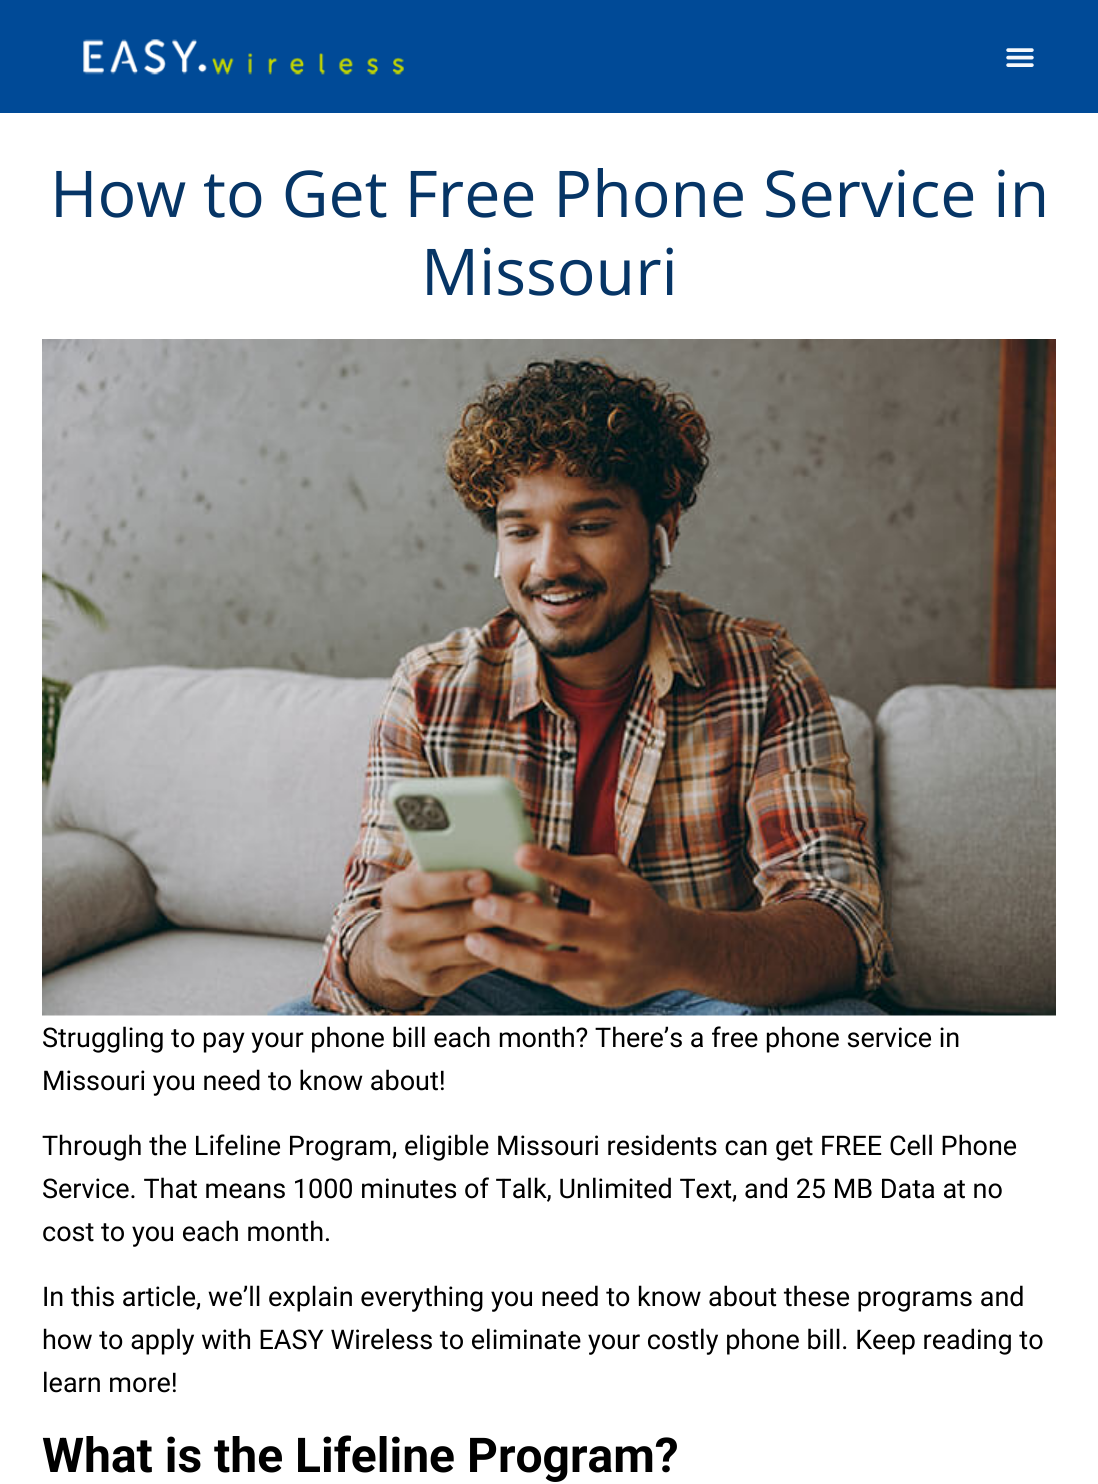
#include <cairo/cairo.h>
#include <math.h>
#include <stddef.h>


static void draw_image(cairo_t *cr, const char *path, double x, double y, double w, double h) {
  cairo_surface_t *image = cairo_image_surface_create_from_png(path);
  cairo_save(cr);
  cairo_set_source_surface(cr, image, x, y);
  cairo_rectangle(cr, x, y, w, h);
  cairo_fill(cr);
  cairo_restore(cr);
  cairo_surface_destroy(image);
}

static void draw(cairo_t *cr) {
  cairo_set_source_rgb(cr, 1, 1, 1);
  cairo_paint(cr);
  cairo_set_source_rgb(cr, 0, 74 / 255.0, 151 / 255.0);
  cairo_rectangle(cr, 0, 0, 1098, 113);
  cairo_fill(cr);
  draw_image(cr, "images/1.png", 83, 39, 321, 36);
  draw_image(cr, "images/2.png", 1006, 48, 28, 19);
  draw_image(cr, "images/3.png", 42, 339, 1014, 677);
  cairo_select_font_face(cr, "Open Sans", CAIRO_FONT_SLANT_NORMAL, CAIRO_FONT_WEIGHT_NORMAL);
  cairo_set_font_size(cr, 64.5);
  cairo_set_source_rgb(cr, 6 / 255.0, 53 / 255.0, 102 / 255.0);
  cairo_move_to(cr, 50, 217);
  cairo_show_text(cr, "How to Get Free Phone Service in");
  cairo_move_to(cr, 421, 295);
  cairo_show_text(cr, "Missouri");
  cairo_select_font_face(cr, "Roboto", CAIRO_FONT_SLANT_NORMAL, CAIRO_FONT_WEIGHT_NORMAL);
  cairo_set_font_size(cr, 27);
  cairo_set_source_rgb(cr, 0, 0, 0);
  cairo_move_to(cr, 42, 1047);
  cairo_show_text(cr, "Struggling to pay your phone bill each month? There’s a free phone service in");
  cairo_move_to(cr, 42, 1090);
  cairo_show_text(cr, "Missouri you need to know about!");
  cairo_move_to(cr, 42, 1155);
  cairo_show_text(cr, "Through the Lifeline Program, eligible Missouri residents can get FREE Cell Phone");
  cairo_move_to(cr, 42, 1198);
  cairo_show_text(cr, "Service. That means 1000 minutes of Talk, Unlimited Text, and 25 MB Data at no");
  cairo_move_to(cr, 42, 1241);
  cairo_show_text(cr, "cost to you each month.");
  cairo_move_to(cr, 42, 1306);
  cairo_show_text(cr, "In this article, we’ll explain everything you need to know about these programs and");
  cairo_move_to(cr, 42, 1349);
  cairo_show_text(cr, "how to apply with EASY Wireless to eliminate your costly phone bill. Keep reading to");
  cairo_move_to(cr, 42, 1392);
  cairo_show_text(cr, "learn more!");
  cairo_select_font_face(cr, "Roboto", CAIRO_FONT_SLANT_NORMAL, CAIRO_FONT_WEIGHT_BOLD);
  cairo_set_font_size(cr, 48);
  cairo_move_to(cr, 42, 1472);
  cairo_show_text(cr, "What is the Lifeline Program?");
}

int main(void) {
  cairo_surface_t *surface = cairo_image_surface_create(CAIRO_FORMAT_RGB24, 1098, 1484);
  cairo_t *cr = cairo_create(surface);
  cairo_font_options_t *options = cairo_font_options_create();
  cairo_font_options_set_hint_metrics(options, CAIRO_HINT_METRICS_OFF);
  cairo_font_options_set_hint_style(options, CAIRO_HINT_STYLE_NONE);
  cairo_set_font_options(cr, options);
  cairo_set_miter_limit(cr, 4);
  draw(cr);
  cairo_surface_write_to_png(surface, "out.png");
  cairo_font_options_destroy(options);
  cairo_destroy(cr);
  cairo_surface_destroy(surface);
  return 0;
}
